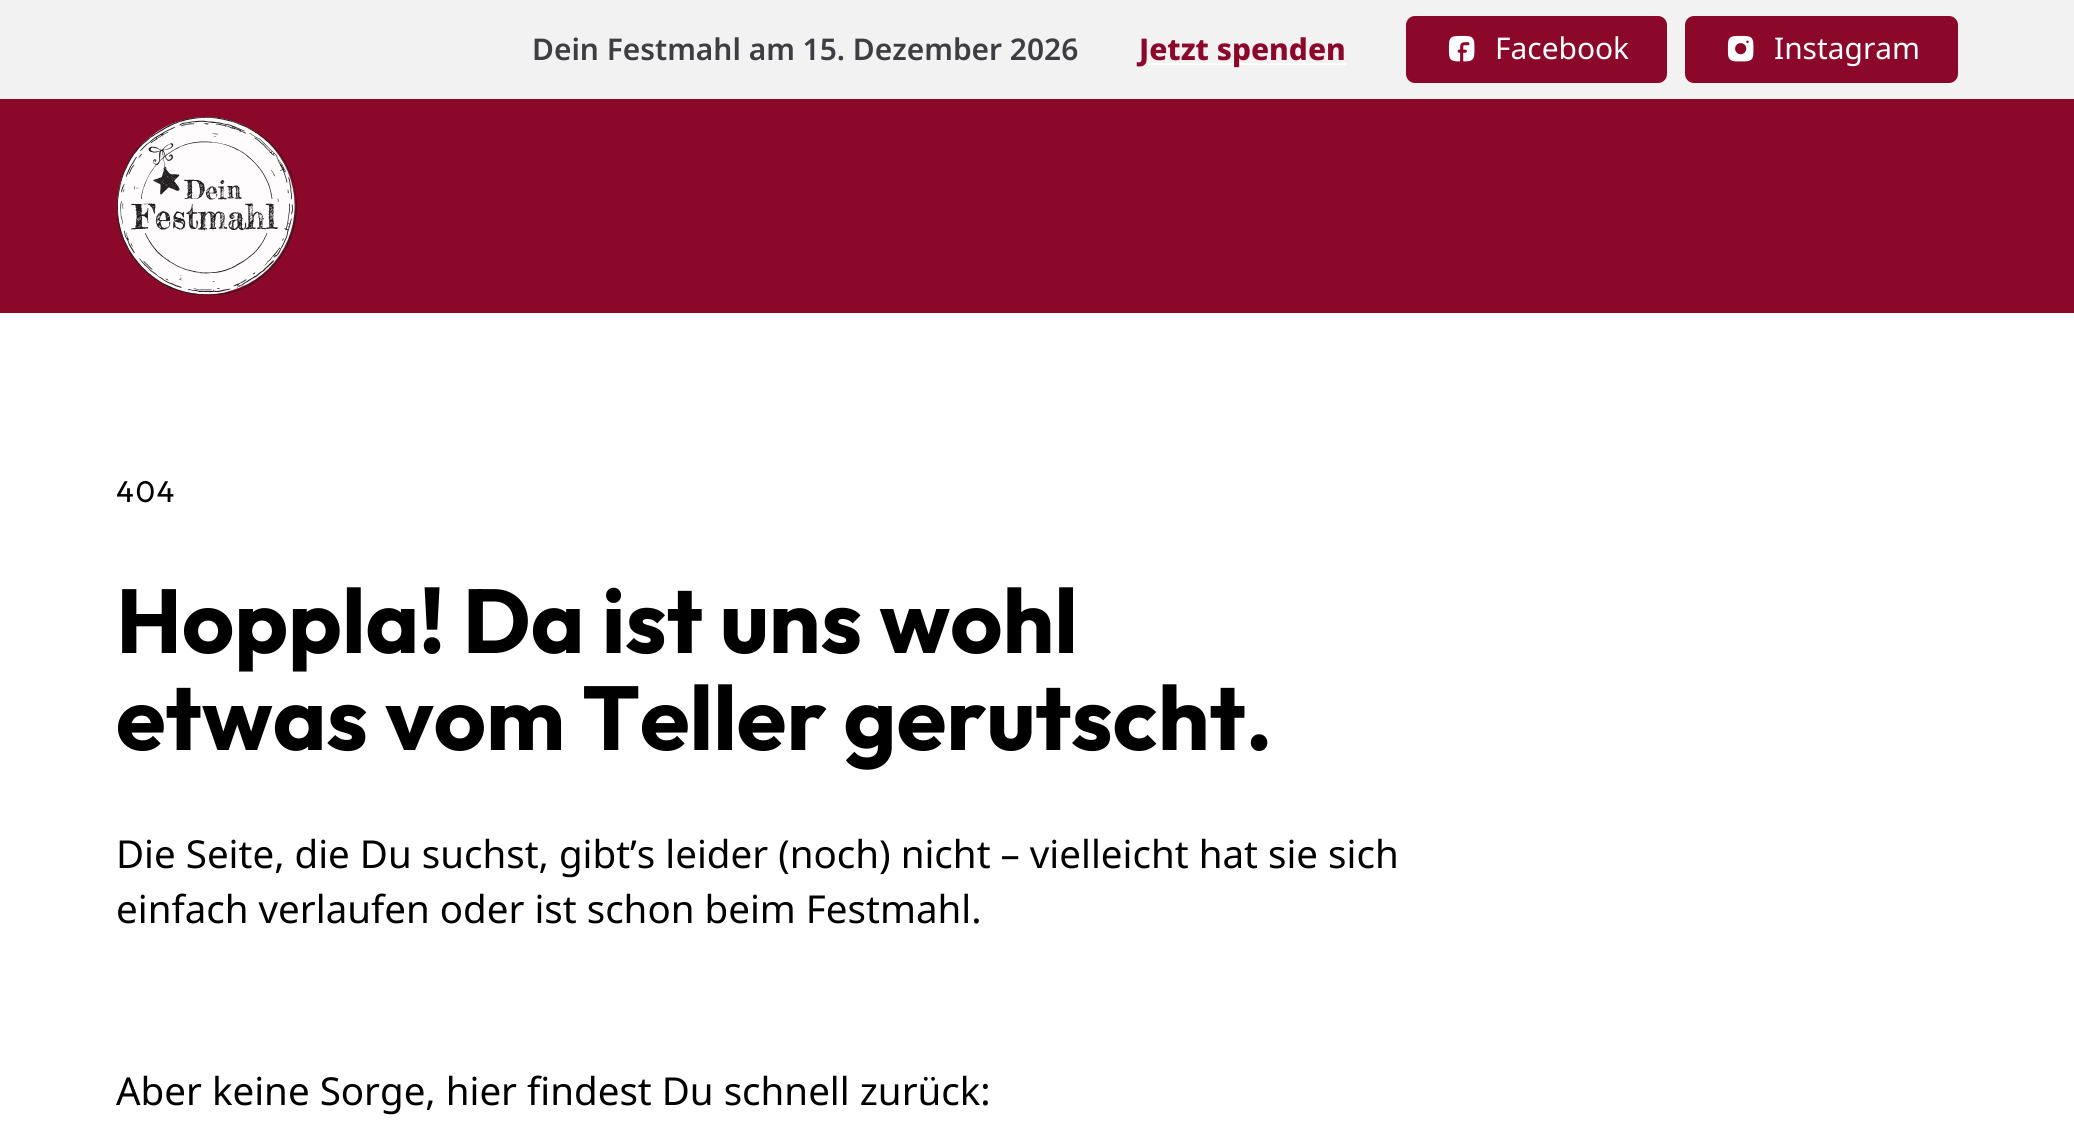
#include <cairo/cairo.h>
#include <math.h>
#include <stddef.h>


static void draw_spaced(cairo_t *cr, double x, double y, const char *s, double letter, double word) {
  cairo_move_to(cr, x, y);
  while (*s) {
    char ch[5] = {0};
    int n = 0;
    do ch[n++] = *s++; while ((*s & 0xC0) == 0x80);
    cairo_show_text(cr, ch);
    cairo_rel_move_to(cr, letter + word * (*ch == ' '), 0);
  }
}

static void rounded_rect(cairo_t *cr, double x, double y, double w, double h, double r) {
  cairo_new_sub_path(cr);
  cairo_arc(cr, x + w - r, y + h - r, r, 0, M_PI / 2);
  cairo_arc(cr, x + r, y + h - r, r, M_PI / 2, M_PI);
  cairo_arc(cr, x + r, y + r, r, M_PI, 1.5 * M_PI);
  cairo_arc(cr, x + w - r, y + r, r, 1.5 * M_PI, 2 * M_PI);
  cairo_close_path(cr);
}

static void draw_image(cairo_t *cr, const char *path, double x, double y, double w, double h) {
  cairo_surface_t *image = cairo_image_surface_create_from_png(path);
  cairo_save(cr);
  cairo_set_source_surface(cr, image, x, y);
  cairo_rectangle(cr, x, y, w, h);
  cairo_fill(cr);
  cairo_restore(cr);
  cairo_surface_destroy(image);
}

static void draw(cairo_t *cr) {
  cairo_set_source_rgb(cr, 1, 1, 1);
  cairo_paint(cr);
  cairo_set_source_rgb(cr, 140 / 255.0, 8 / 255.0, 42 / 255.0);
  cairo_rectangle(cr, 0, 99, 2074, 214);
  cairo_fill(cr);
  cairo_set_source_rgb(cr, 242 / 255.0, 242 / 255.0, 243 / 255.0);
  cairo_rectangle(cr, 0, 0, 2074, 99);
  cairo_fill(cr);
  cairo_set_source_rgb(cr, 1, 1, 1);
  cairo_rectangle(cr, 1139, 63, 207, 2);
  cairo_fill(cr);
  cairo_set_source_rgb(cr, 140 / 255.0, 8 / 255.0, 42 / 255.0);
  rounded_rect(cr, 1406, 16, 261, 67, 9);
  cairo_fill(cr);
  draw_image(cr, "images/1.png", 1448, 35, 27, 27);
  rounded_rect(cr, 1685, 16, 273, 67, 9);
  cairo_fill(cr);
  draw_image(cr, "images/2.png", 1727, 35, 27, 27);
  draw_image(cr, "images/3.png", 117, 117, 180, 178);
  cairo_select_font_face(cr, "Noto Sans SemiBold", CAIRO_FONT_SLANT_NORMAL, CAIRO_FONT_WEIGHT_NORMAL);
  cairo_set_font_size(cr, 29.9);
  cairo_set_source_rgb(cr, 61 / 255.0, 61 / 255.0, 66 / 255.0);
  cairo_move_to(cr, 532, 60);
  cairo_show_text(cr, "Dein Festmahl am 15. Dezember 2026");
  cairo_select_font_face(cr, "Noto Sans ExtraBold", CAIRO_FONT_SLANT_NORMAL, CAIRO_FONT_WEIGHT_NORMAL);
  cairo_set_source_rgb(cr, 140 / 255.0, 8 / 255.0, 42 / 255.0);
  cairo_move_to(cr, 1139, 60);
  cairo_show_text(cr, "Jetzt spenden");
  cairo_select_font_face(cr, "Noto Sans", CAIRO_FONT_SLANT_NORMAL, CAIRO_FONT_WEIGHT_NORMAL);
  cairo_set_source_rgb(cr, 1, 1, 1);
  cairo_move_to(cr, 1495, 59);
  cairo_show_text(cr, "Facebook");
  cairo_move_to(cr, 1774, 59);
  cairo_show_text(cr, "Instagram");
  cairo_select_font_face(cr, "Outfit", CAIRO_FONT_SLANT_NORMAL, CAIRO_FONT_WEIGHT_NORMAL);
  cairo_set_source_rgb(cr, 0, 0, 0);
  draw_spaced(cr, 116, 502, "404", 1.5, 0);
  cairo_select_font_face(cr, "Outfit", CAIRO_FONT_SLANT_NORMAL, CAIRO_FONT_WEIGHT_BOLD);
  cairo_set_font_size(cr, 90.5);
  cairo_move_to(cr, 116, 653);
  cairo_show_text(cr, "Hoppla! Da ist uns wohl");
  cairo_move_to(cr, 116, 750);
  cairo_show_text(cr, "etwas vom Teller gerutscht.");
  cairo_select_font_face(cr, "Noto Sans", CAIRO_FONT_SLANT_NORMAL, CAIRO_FONT_WEIGHT_NORMAL);
  cairo_set_font_size(cr, 38.5);
  cairo_move_to(cr, 116, 868);
  cairo_show_text(cr, "Die Seite, die Du suchst, gibt’s leider (noch) nicht – vielleicht hat sie sich");
  cairo_move_to(cr, 116, 923);
  cairo_show_text(cr, "einfach verlaufen oder ist schon beim Festmahl.");
  cairo_move_to(cr, 116, 1105);
  cairo_show_text(cr, "Aber keine Sorge, hier findest Du schnell zurück:");
}

int main(void) {
  cairo_surface_t *surface = cairo_image_surface_create(CAIRO_FORMAT_RGB24, 2074, 1126);
  cairo_t *cr = cairo_create(surface);
  cairo_font_options_t *options = cairo_font_options_create();
  cairo_font_options_set_hint_metrics(options, CAIRO_HINT_METRICS_OFF);
  cairo_font_options_set_hint_style(options, CAIRO_HINT_STYLE_NONE);
  cairo_set_font_options(cr, options);
  cairo_set_miter_limit(cr, 4);
  draw(cr);
  cairo_surface_write_to_png(surface, "out.png");
  cairo_font_options_destroy(options);
  cairo_destroy(cr);
  cairo_surface_destroy(surface);
  return 0;
}
